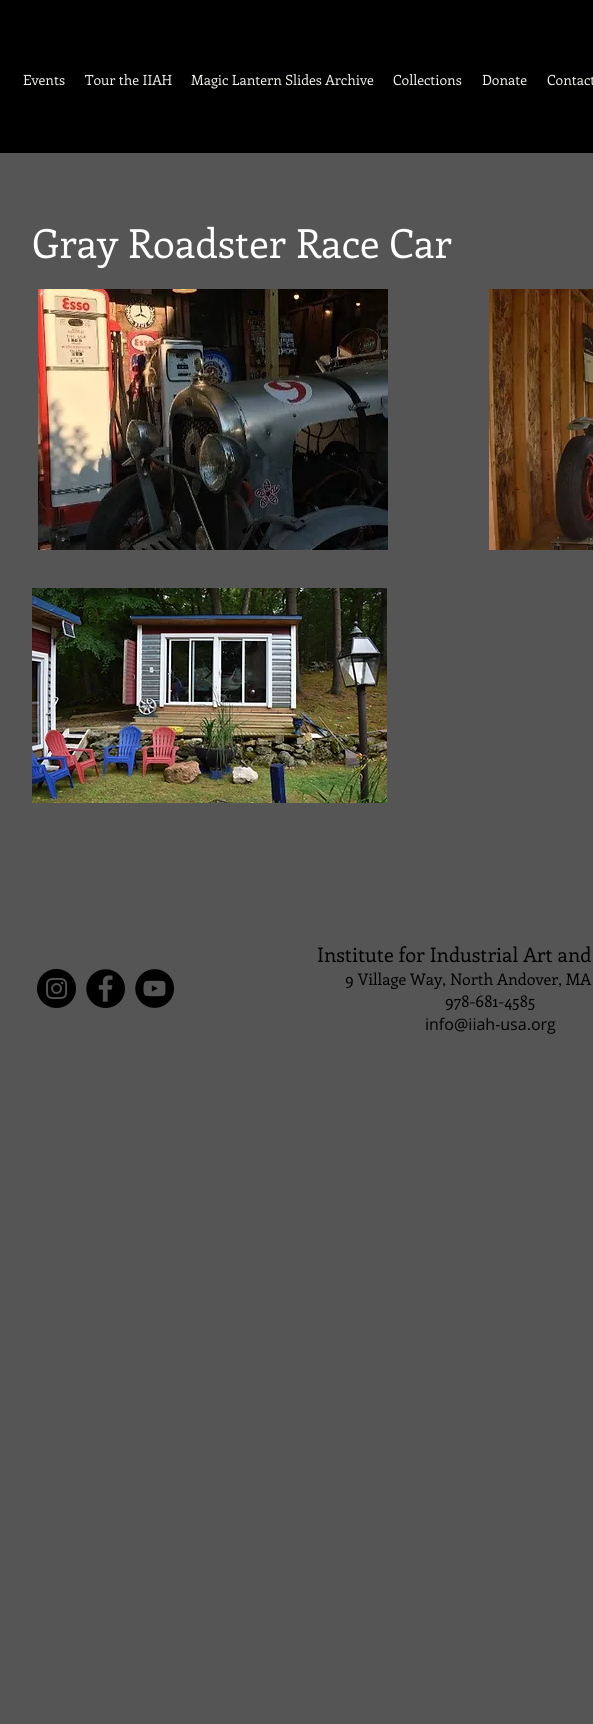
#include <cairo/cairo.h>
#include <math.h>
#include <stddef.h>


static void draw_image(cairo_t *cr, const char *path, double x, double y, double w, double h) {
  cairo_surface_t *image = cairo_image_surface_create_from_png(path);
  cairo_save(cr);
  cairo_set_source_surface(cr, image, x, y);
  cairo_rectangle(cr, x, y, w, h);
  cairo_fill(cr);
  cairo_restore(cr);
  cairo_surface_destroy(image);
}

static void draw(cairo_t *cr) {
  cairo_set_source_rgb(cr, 85 / 255.0, 85 / 255.0, 85 / 255.0);
  cairo_paint(cr);
  cairo_set_source_rgb(cr, 0, 0, 0);
  cairo_rectangle(cr, 0, 0, 593, 153);
  cairo_fill(cr);
  draw_image(cr, "images/1.png", 38, 289, 350, 261);
  draw_image(cr, "images/2.png", 489, 289, 104, 261);
  draw_image(cr, "images/3.png", 32, 588, 355, 215);
  draw_image(cr, "images/4.png", 37, 969, 39, 39);
  draw_image(cr, "images/5.png", 86, 969, 39, 39);
  draw_image(cr, "images/6.png", 135, 969, 39, 39);
  cairo_select_font_face(cr, "Enriqueta", CAIRO_FONT_SLANT_NORMAL, CAIRO_FONT_WEIGHT_NORMAL);
  cairo_set_font_size(cr, 14);
  cairo_set_source_rgb(cr, 244 / 255.0, 242 / 255.0, 236 / 255.0);
  cairo_move_to(cr, 23, 85);
  cairo_show_text(cr, "Events");
  cairo_move_to(cr, 85, 85);
  cairo_show_text(cr, "Tour the IIAH");
  cairo_move_to(cr, 191, 85);
  cairo_show_text(cr, "Magic Lantern Slides Archive");
  cairo_move_to(cr, 393, 85);
  cairo_show_text(cr, "Collections");
  cairo_move_to(cr, 482, 85);
  cairo_show_text(cr, "Donate");
  cairo_move_to(cr, 547, 85);
  cairo_show_text(cr, "Contact");
  cairo_set_font_size(cr, 40);
  cairo_set_source_rgb(cr, 1, 1, 1);
  cairo_move_to(cr, 32, 258);
  cairo_show_text(cr, "Gray Roadster Race Car");
  cairo_set_font_size(cr, 20);
  cairo_set_source_rgb(cr, 0, 0, 0);
  cairo_move_to(cr, 317, 962);
  cairo_show_text(cr, "Institute for Industrial Art and");
  cairo_set_font_size(cr, 16);
  cairo_move_to(cr, 345, 985);
  cairo_show_text(cr, "9 Village Way, North Andover, MA");
  cairo_move_to(cr, 445, 1007);
  cairo_show_text(cr, "978-681-4585");
  cairo_select_font_face(cr, "Open Sans", CAIRO_FONT_SLANT_NORMAL, CAIRO_FONT_WEIGHT_NORMAL);
  cairo_move_to(cr, 425, 1030);
  cairo_show_text(cr, "info@iiah-usa.org");
}

int main(void) {
  cairo_surface_t *surface = cairo_image_surface_create(CAIRO_FORMAT_RGB24, 593, 1724);
  cairo_t *cr = cairo_create(surface);
  cairo_font_options_t *options = cairo_font_options_create();
  cairo_font_options_set_hint_metrics(options, CAIRO_HINT_METRICS_OFF);
  cairo_font_options_set_hint_style(options, CAIRO_HINT_STYLE_NONE);
  cairo_set_font_options(cr, options);
  cairo_set_miter_limit(cr, 4);
  draw(cr);
  cairo_surface_write_to_png(surface, "out.png");
  cairo_font_options_destroy(options);
  cairo_destroy(cr);
  cairo_surface_destroy(surface);
  return 0;
}
